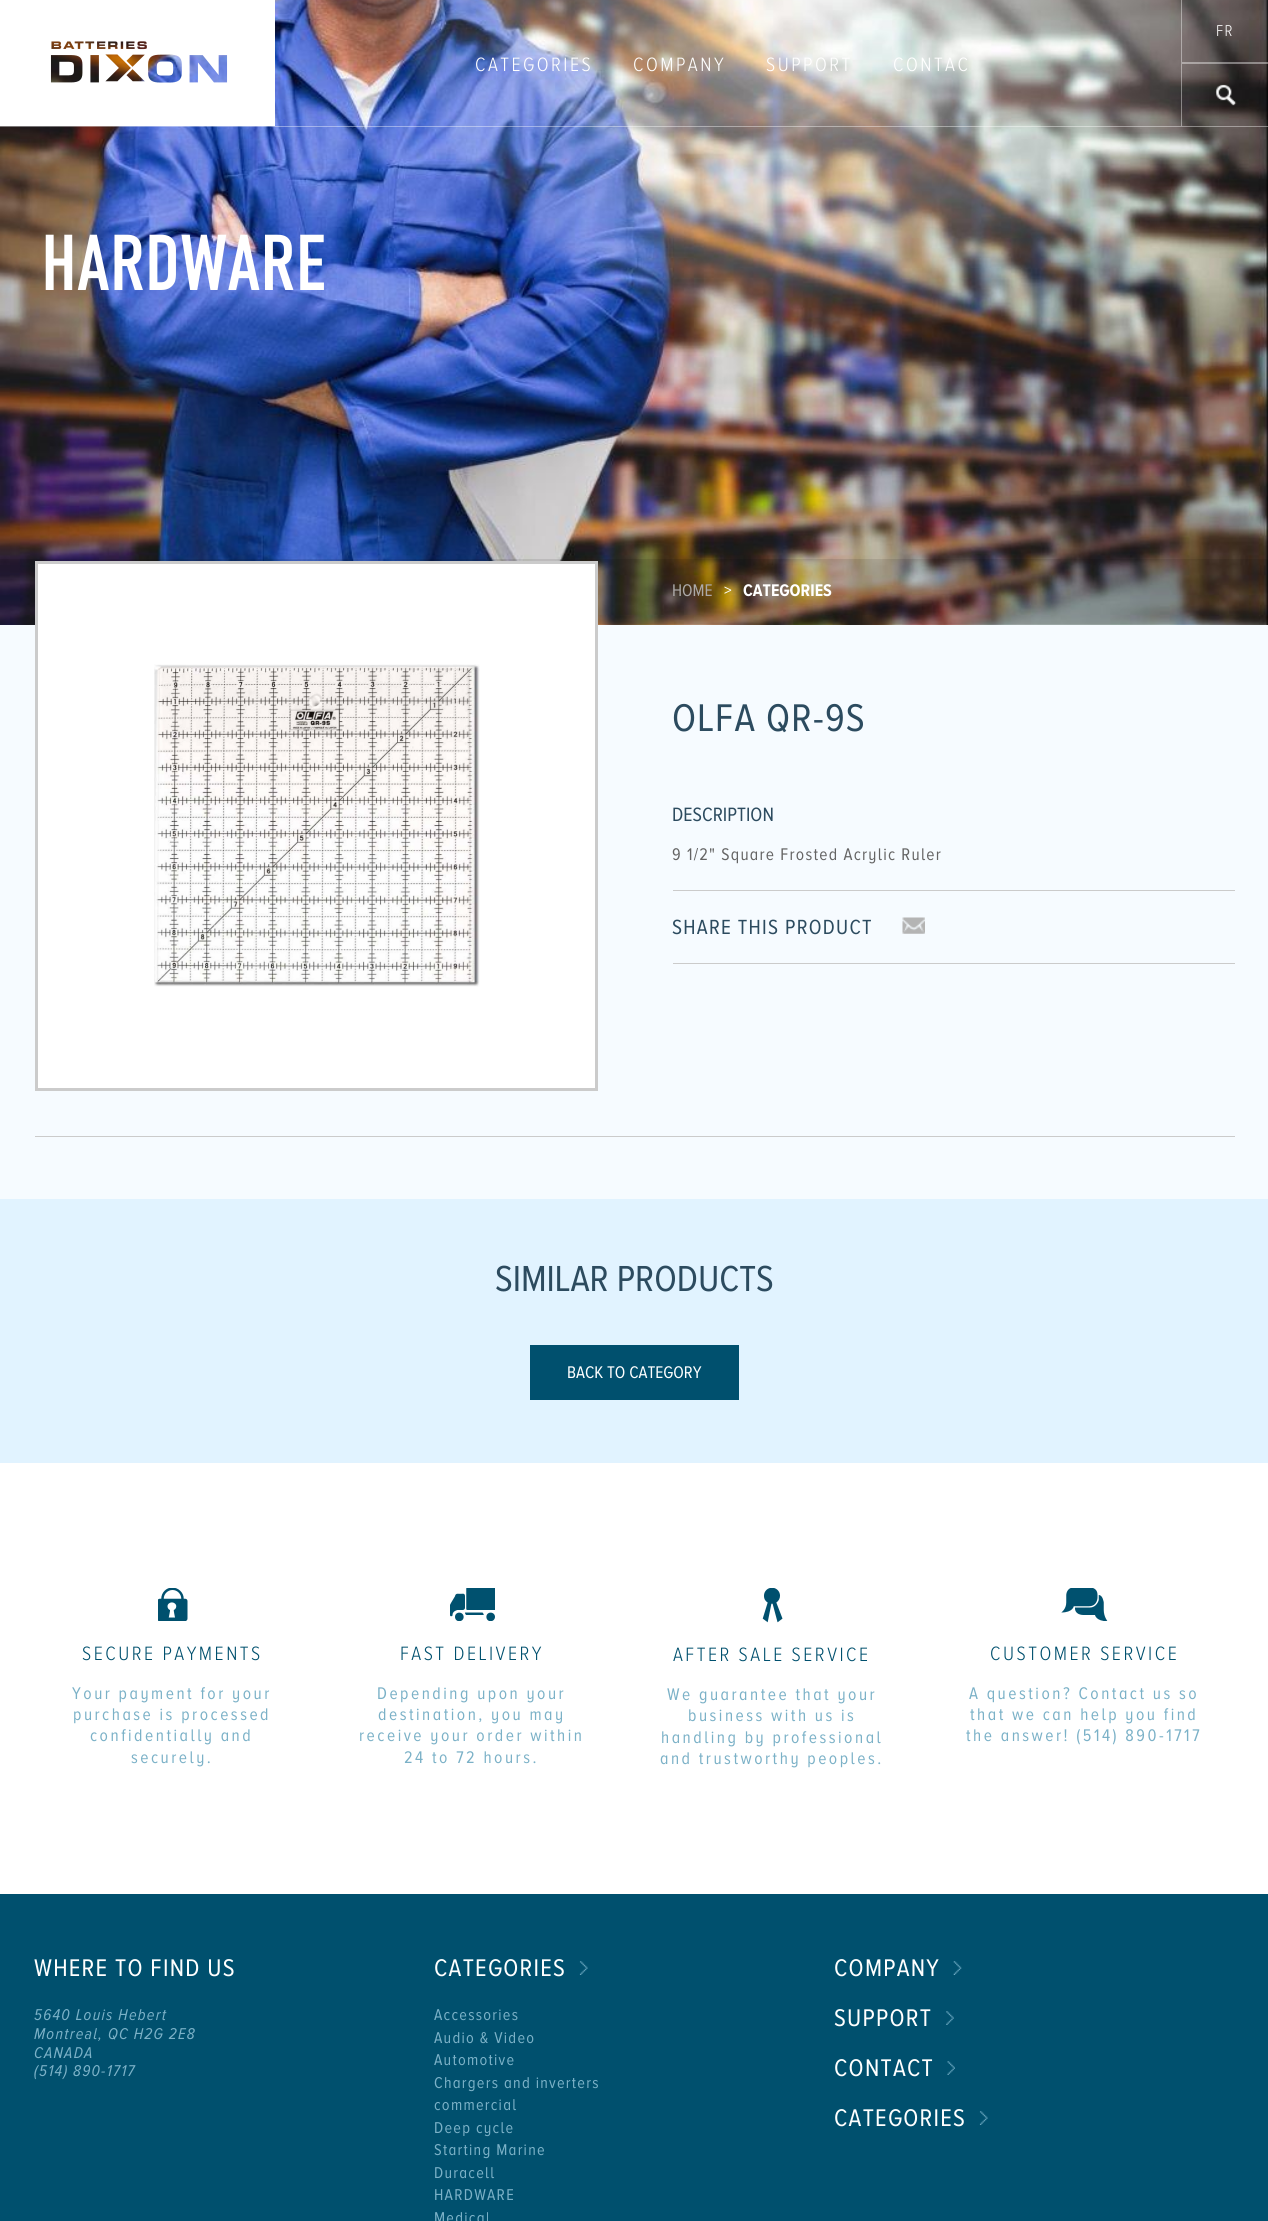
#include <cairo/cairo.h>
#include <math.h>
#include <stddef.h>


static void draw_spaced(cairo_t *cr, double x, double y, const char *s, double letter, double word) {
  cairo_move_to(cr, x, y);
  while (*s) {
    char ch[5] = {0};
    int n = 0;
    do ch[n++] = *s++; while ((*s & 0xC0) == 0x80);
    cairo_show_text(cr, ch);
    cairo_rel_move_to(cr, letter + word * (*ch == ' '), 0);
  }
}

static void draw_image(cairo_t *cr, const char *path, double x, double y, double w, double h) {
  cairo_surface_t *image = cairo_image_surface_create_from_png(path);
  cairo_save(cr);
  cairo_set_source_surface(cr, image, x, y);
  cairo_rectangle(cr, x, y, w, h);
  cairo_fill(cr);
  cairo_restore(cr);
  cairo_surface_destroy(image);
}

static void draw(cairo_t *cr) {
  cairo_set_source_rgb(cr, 246 / 255.0, 251 / 255.0, 1);
  cairo_paint(cr);
  draw_image(cr, "images/1.png", 0, 0, 1268, 625);
  cairo_set_source_rgba(cr, 1, 1, 1, 0.4);
  cairo_rectangle(cr, 0, 126, 1268, 1);
  cairo_fill(cr);
  draw_image(cr, "images/2.png", 0, 0, 275, 126);
  cairo_new_path(cr);
  cairo_move_to(cr, 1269, 64);
  cairo_line_to(cr, 1181, 64);
  cairo_line_to(cr, 1182, 62);
  cairo_line_to(cr, 1268, 62);
  cairo_close_path(cr);
  cairo_fill(cr);
  cairo_new_path(cr);
  cairo_move_to(cr, 1181, 64);
  cairo_line_to(cr, 1181, 0);
  cairo_line_to(cr, 1182, 0);
  cairo_line_to(cr, 1182, 62);
  cairo_close_path(cr);
  cairo_fill(cr);
  cairo_rectangle(cr, 1181, 64, 1, 62);
  cairo_fill(cr);
  draw_image(cr, "images/3.png", 1215, 84, 22, 22);
  cairo_set_source_rgba(cr, 0, 0, 0, 0.1);
  cairo_rectangle(cr, 0, 559, 1268, 65);
  cairo_fill(cr);
  cairo_set_source_rgb(cr, 1, 1, 1);
  cairo_rectangle(cr, 36.5, 562.5, 560, 527);
  cairo_fill_preserve(cr);
  cairo_set_source_rgb(cr, 203 / 255.0, 203 / 255.0, 203 / 255.0);
  cairo_set_line_width(cr, 3);
  cairo_stroke(cr);
  draw_image(cr, "images/4.png", 154, 664, 326, 323);
  cairo_rectangle(cr, 673, 890, 562, 1);
  cairo_fill(cr);
  cairo_rectangle(cr, 673, 963, 562, 1);
  cairo_fill(cr);
  draw_image(cr, "images/5.png", 902, 917, 23, 17);
  cairo_rectangle(cr, 35, 1136, 1200, 1);
  cairo_fill(cr);
  cairo_set_source_rgb(cr, 225 / 255.0, 243 / 255.0, 1);
  cairo_rectangle(cr, 0, 1199, 1268, 264);
  cairo_fill(cr);
  cairo_set_source_rgb(cr, 0, 80 / 255.0, 110 / 255.0);
  cairo_rectangle(cr, 530, 1345, 209, 55);
  cairo_fill(cr);
  cairo_set_source_rgb(cr, 1, 1, 1);
  cairo_rectangle(cr, 0, 1463, 1268, 431);
  cairo_fill(cr);
  draw_image(cr, "images/6.png", 158, 1588, 30, 33);
  draw_image(cr, "images/7.png", 450, 1588, 45, 33);
  draw_image(cr, "images/8.png", 762, 1588, 21, 35);
  draw_image(cr, "images/9.png", 1061, 1588, 47, 33);
  cairo_set_source_rgb(cr, 0, 80 / 255.0, 110 / 255.0);
  cairo_rectangle(cr, 0, 1894, 1268, 327);
  cairo_fill(cr);
  draw_image(cr, "images/10.png", 579, 1961, 9, 14);
  draw_image(cr, "images/11.png", 953, 1961, 9, 14);
  draw_image(cr, "images/12.png", 946, 2011, 8, 14);
  draw_image(cr, "images/13.png", 947, 2061, 8, 14);
  draw_image(cr, "images/10.png", 979, 2111, 9, 14);
  cairo_select_font_face(cr, "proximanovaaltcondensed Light", CAIRO_FONT_SLANT_NORMAL, CAIRO_FONT_WEIGHT_NORMAL);
  cairo_set_font_size(cr, 16.25);
  cairo_set_source_rgb(cr, 1, 1, 1);
  draw_spaced(cr, 1216, 36, "FR", 1.25, 0);
  cairo_set_font_size(cr, 20);
  draw_spaced(cr, 475, 71, "CATEGORIES", 2.5, 0);
  draw_spaced(cr, 633, 71, "COMPANY", 2.5, 0);
  draw_spaced(cr, 766, 71, "SUPPORT", 2.5, 0);
  draw_spaced(cr, 893, 71, "CONTAC", 2.5, 0);
  cairo_select_font_face(cr, "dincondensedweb", CAIRO_FONT_SLANT_NORMAL, CAIRO_FONT_WEIGHT_NORMAL);
  cairo_set_font_size(cr, 79);
  cairo_move_to(cr, 41, 290);
  cairo_show_text(cr, "HARDWARE");
  cairo_select_font_face(cr, "proximanovaaltcondensed", CAIRO_FONT_SLANT_NORMAL, CAIRO_FONT_WEIGHT_NORMAL);
  cairo_set_font_size(cr, 17.5);
  cairo_set_source_rgb(cr, 172 / 255.0, 169 / 255.0, 168 / 255.0);
  cairo_move_to(cr, 672, 596);
  cairo_show_text(cr, "HOME");
  cairo_set_source_rgb(cr, 1, 1, 1);
  cairo_move_to(cr, 724, 596);
  cairo_show_text(cr, ">");
  cairo_select_font_face(cr, "proximanovaaltcondensed", CAIRO_FONT_SLANT_NORMAL, CAIRO_FONT_WEIGHT_BOLD);
  cairo_move_to(cr, 743, 596);
  cairo_show_text(cr, "CATEGORIES");
  cairo_select_font_face(cr, "proximanovaaltcondensed", CAIRO_FONT_SLANT_NORMAL, CAIRO_FONT_WEIGHT_NORMAL);
  cairo_set_font_size(cr, 40);
  cairo_set_source_rgb(cr, 44 / 255.0, 75 / 255.0, 95 / 255.0);
  draw_spaced(cr, 672, 731, "OLFA QR-9S", 1.25, 0);
  cairo_set_font_size(cr, 20);
  cairo_move_to(cr, 672, 821);
  cairo_show_text(cr, "DESCRIPTION");
  cairo_set_font_size(cr, 17.5);
  cairo_set_source_rgb(cr, 100 / 255.0, 100 / 255.0, 100 / 255.0);
  draw_spaced(cr, 672, 860, "9 1/2\" Square Frosted Acrylic Ruler", 1.25, 0);
  cairo_set_font_size(cr, 21.25);
  cairo_set_source_rgb(cr, 44 / 255.0, 75 / 255.0, 95 / 255.0);
  draw_spaced(cr, 672, 934, "SHARE THIS PRODUCT", 1.25, 0);
  cairo_set_font_size(cr, 37.5);
  cairo_move_to(cr, 495, 1291);
  cairo_show_text(cr, "SIMILAR PRODUCTS");
  cairo_set_font_size(cr, 17.5);
  cairo_set_source_rgb(cr, 1, 1, 1);
  cairo_move_to(cr, 567, 1378);
  cairo_show_text(cr, "BACK TO CATEGORY");
  cairo_select_font_face(cr, "proximanovaaltcondensed Light", CAIRO_FONT_SLANT_NORMAL, CAIRO_FONT_WEIGHT_NORMAL);
  cairo_set_font_size(cr, 20);
  cairo_set_source_rgb(cr, 0, 80 / 255.0, 110 / 255.0);
  draw_spaced(cr, 82, 1660, "SECURE PAYMENTS", 2.5, 0);
  cairo_select_font_face(cr, "proximanovaaltcondensed", CAIRO_FONT_SLANT_NORMAL, CAIRO_FONT_WEIGHT_NORMAL);
  cairo_set_font_size(cr, 17.5);
  cairo_set_source_rgb(cr, 123 / 255.0, 177 / 255.0, 199 / 255.0);
  draw_spaced(cr, 72, 1699, "Your payment for your", 2.5, 0);
  draw_spaced(cr, 73, 1720, "purchase is processed", 2.5, 0);
  draw_spaced(cr, 90, 1741, "confidentially and", 2.5, 0);
  draw_spaced(cr, 131, 1763, "securely.", 2.5, 0);
  cairo_select_font_face(cr, "proximanovaaltcondensed Light", CAIRO_FONT_SLANT_NORMAL, CAIRO_FONT_WEIGHT_NORMAL);
  cairo_set_font_size(cr, 20);
  cairo_set_source_rgb(cr, 0, 80 / 255.0, 110 / 255.0);
  draw_spaced(cr, 400, 1660, "FAST DELIVERY", 2.5, 0);
  cairo_select_font_face(cr, "proximanovaaltcondensed", CAIRO_FONT_SLANT_NORMAL, CAIRO_FONT_WEIGHT_NORMAL);
  cairo_set_font_size(cr, 17.5);
  cairo_set_source_rgb(cr, 123 / 255.0, 177 / 255.0, 199 / 255.0);
  draw_spaced(cr, 377, 1699, "Depending upon your", 2.5, 0);
  draw_spaced(cr, 378, 1720, "destination, you may", 2.5, 0);
  draw_spaced(cr, 359, 1741, "receive your order within", 2.5, 0);
  draw_spaced(cr, 404, 1763, "24 to 72 hours.", 2.5, 0);
  cairo_select_font_face(cr, "proximanovaaltcondensed Light", CAIRO_FONT_SLANT_NORMAL, CAIRO_FONT_WEIGHT_NORMAL);
  cairo_set_font_size(cr, 20);
  cairo_set_source_rgb(cr, 0, 80 / 255.0, 110 / 255.0);
  draw_spaced(cr, 673, 1661, "AFTER SALE SERVICE", 2.5, 0);
  cairo_select_font_face(cr, "proximanovaaltcondensed", CAIRO_FONT_SLANT_NORMAL, CAIRO_FONT_WEIGHT_NORMAL);
  cairo_set_font_size(cr, 17.5);
  cairo_set_source_rgb(cr, 123 / 255.0, 177 / 255.0, 199 / 255.0);
  draw_spaced(cr, 667, 1700, "We guarantee that your", 2.5, 0);
  draw_spaced(cr, 688, 1721, "business with us is", 2.5, 0);
  draw_spaced(cr, 661, 1743, "handling by professional", 2.5, 0);
  draw_spaced(cr, 660, 1764, "and trustworthy peoples.", 2.5, 0);
  cairo_select_font_face(cr, "proximanovaaltcondensed Light", CAIRO_FONT_SLANT_NORMAL, CAIRO_FONT_WEIGHT_NORMAL);
  cairo_set_font_size(cr, 20);
  cairo_set_source_rgb(cr, 0, 80 / 255.0, 110 / 255.0);
  draw_spaced(cr, 990, 1660, "CUSTOMER SERVICE", 2.5, 0);
  cairo_select_font_face(cr, "proximanovaaltcondensed", CAIRO_FONT_SLANT_NORMAL, CAIRO_FONT_WEIGHT_NORMAL);
  cairo_set_font_size(cr, 17.5);
  cairo_set_source_rgb(cr, 123 / 255.0, 177 / 255.0, 199 / 255.0);
  draw_spaced(cr, 969, 1699, "A question? Contact us so", 2.5, 0);
  draw_spaced(cr, 970, 1720, "that we can help you find", 2.5, 0);
  draw_spaced(cr, 966, 1741, "the answer! (514) 890-1717", 2.5, 0);
  cairo_set_font_size(cr, 25);
  cairo_set_source_rgb(cr, 1, 1, 1);
  draw_spaced(cr, 34, 1976, "WHERE TO FIND US", 1.25, 0);
  cairo_select_font_face(cr, "proximanovaaltcondensed", CAIRO_FONT_SLANT_ITALIC, CAIRO_FONT_WEIGHT_NORMAL);
  cairo_set_font_size(cr, 16.25);
  cairo_set_source_rgb(cr, 123 / 255.0, 177 / 255.0, 199 / 255.0);
  draw_spaced(cr, 34, 2020, "5640 Louis Hebert", 1.25, 0);
  draw_spaced(cr, 34, 2039, "Montreal, QC H2G 2E8", 1.25, 0);
  draw_spaced(cr, 34, 2058, "CANADA", 1.25, 0);
  draw_spaced(cr, 34, 2076, "(514) 890-1717", 1.25, 0);
  cairo_select_font_face(cr, "proximanovaaltcondensed", CAIRO_FONT_SLANT_NORMAL, CAIRO_FONT_WEIGHT_NORMAL);
  cairo_set_font_size(cr, 25);
  cairo_set_source_rgb(cr, 1, 1, 1);
  draw_spaced(cr, 434, 1976, "CATEGORIES", 1.25, 0);
  cairo_set_font_size(cr, 16.25);
  cairo_set_source_rgb(cr, 123 / 255.0, 177 / 255.0, 199 / 255.0);
  draw_spaced(cr, 434, 2020, "Accessories", 1.25, 0);
  draw_spaced(cr, 434, 2043, "Audio & Video", 1.25, 0);
  draw_spaced(cr, 434, 2065, "Automotive", 1.25, 0);
  draw_spaced(cr, 434, 2088, "Chargers and inverters", 1.25, 0);
  draw_spaced(cr, 434, 2110, "commercial", 1.25, 0);
  draw_spaced(cr, 434, 2133, "Deep cycle", 1.25, 0);
  draw_spaced(cr, 434, 2155, "Starting Marine", 1.25, 0);
  draw_spaced(cr, 434, 2178, "Duracell", 1.25, 0);
  draw_spaced(cr, 434, 2200, "HARDWARE", 1.25, 0);
  draw_spaced(cr, 434, 2223, "Medical", 1.25, 0);
  cairo_set_font_size(cr, 25);
  cairo_set_source_rgb(cr, 1, 1, 1);
  draw_spaced(cr, 834, 1976, "COMPANY", 1.25, 0);
  draw_spaced(cr, 834, 2026, "SUPPORT", 1.25, 0);
  draw_spaced(cr, 834, 2076, "CONTACT", 1.25, 0);
  draw_spaced(cr, 834, 2126, "CATEGORIES", 1.25, 0);
}

int main(void) {
  cairo_surface_t *surface = cairo_image_surface_create(CAIRO_FORMAT_RGB24, 1268, 2221);
  cairo_t *cr = cairo_create(surface);
  cairo_font_options_t *options = cairo_font_options_create();
  cairo_font_options_set_hint_metrics(options, CAIRO_HINT_METRICS_OFF);
  cairo_font_options_set_hint_style(options, CAIRO_HINT_STYLE_NONE);
  cairo_set_font_options(cr, options);
  cairo_set_miter_limit(cr, 4);
  draw(cr);
  cairo_surface_write_to_png(surface, "out.png");
  cairo_font_options_destroy(options);
  cairo_destroy(cr);
  cairo_surface_destroy(surface);
  return 0;
}
